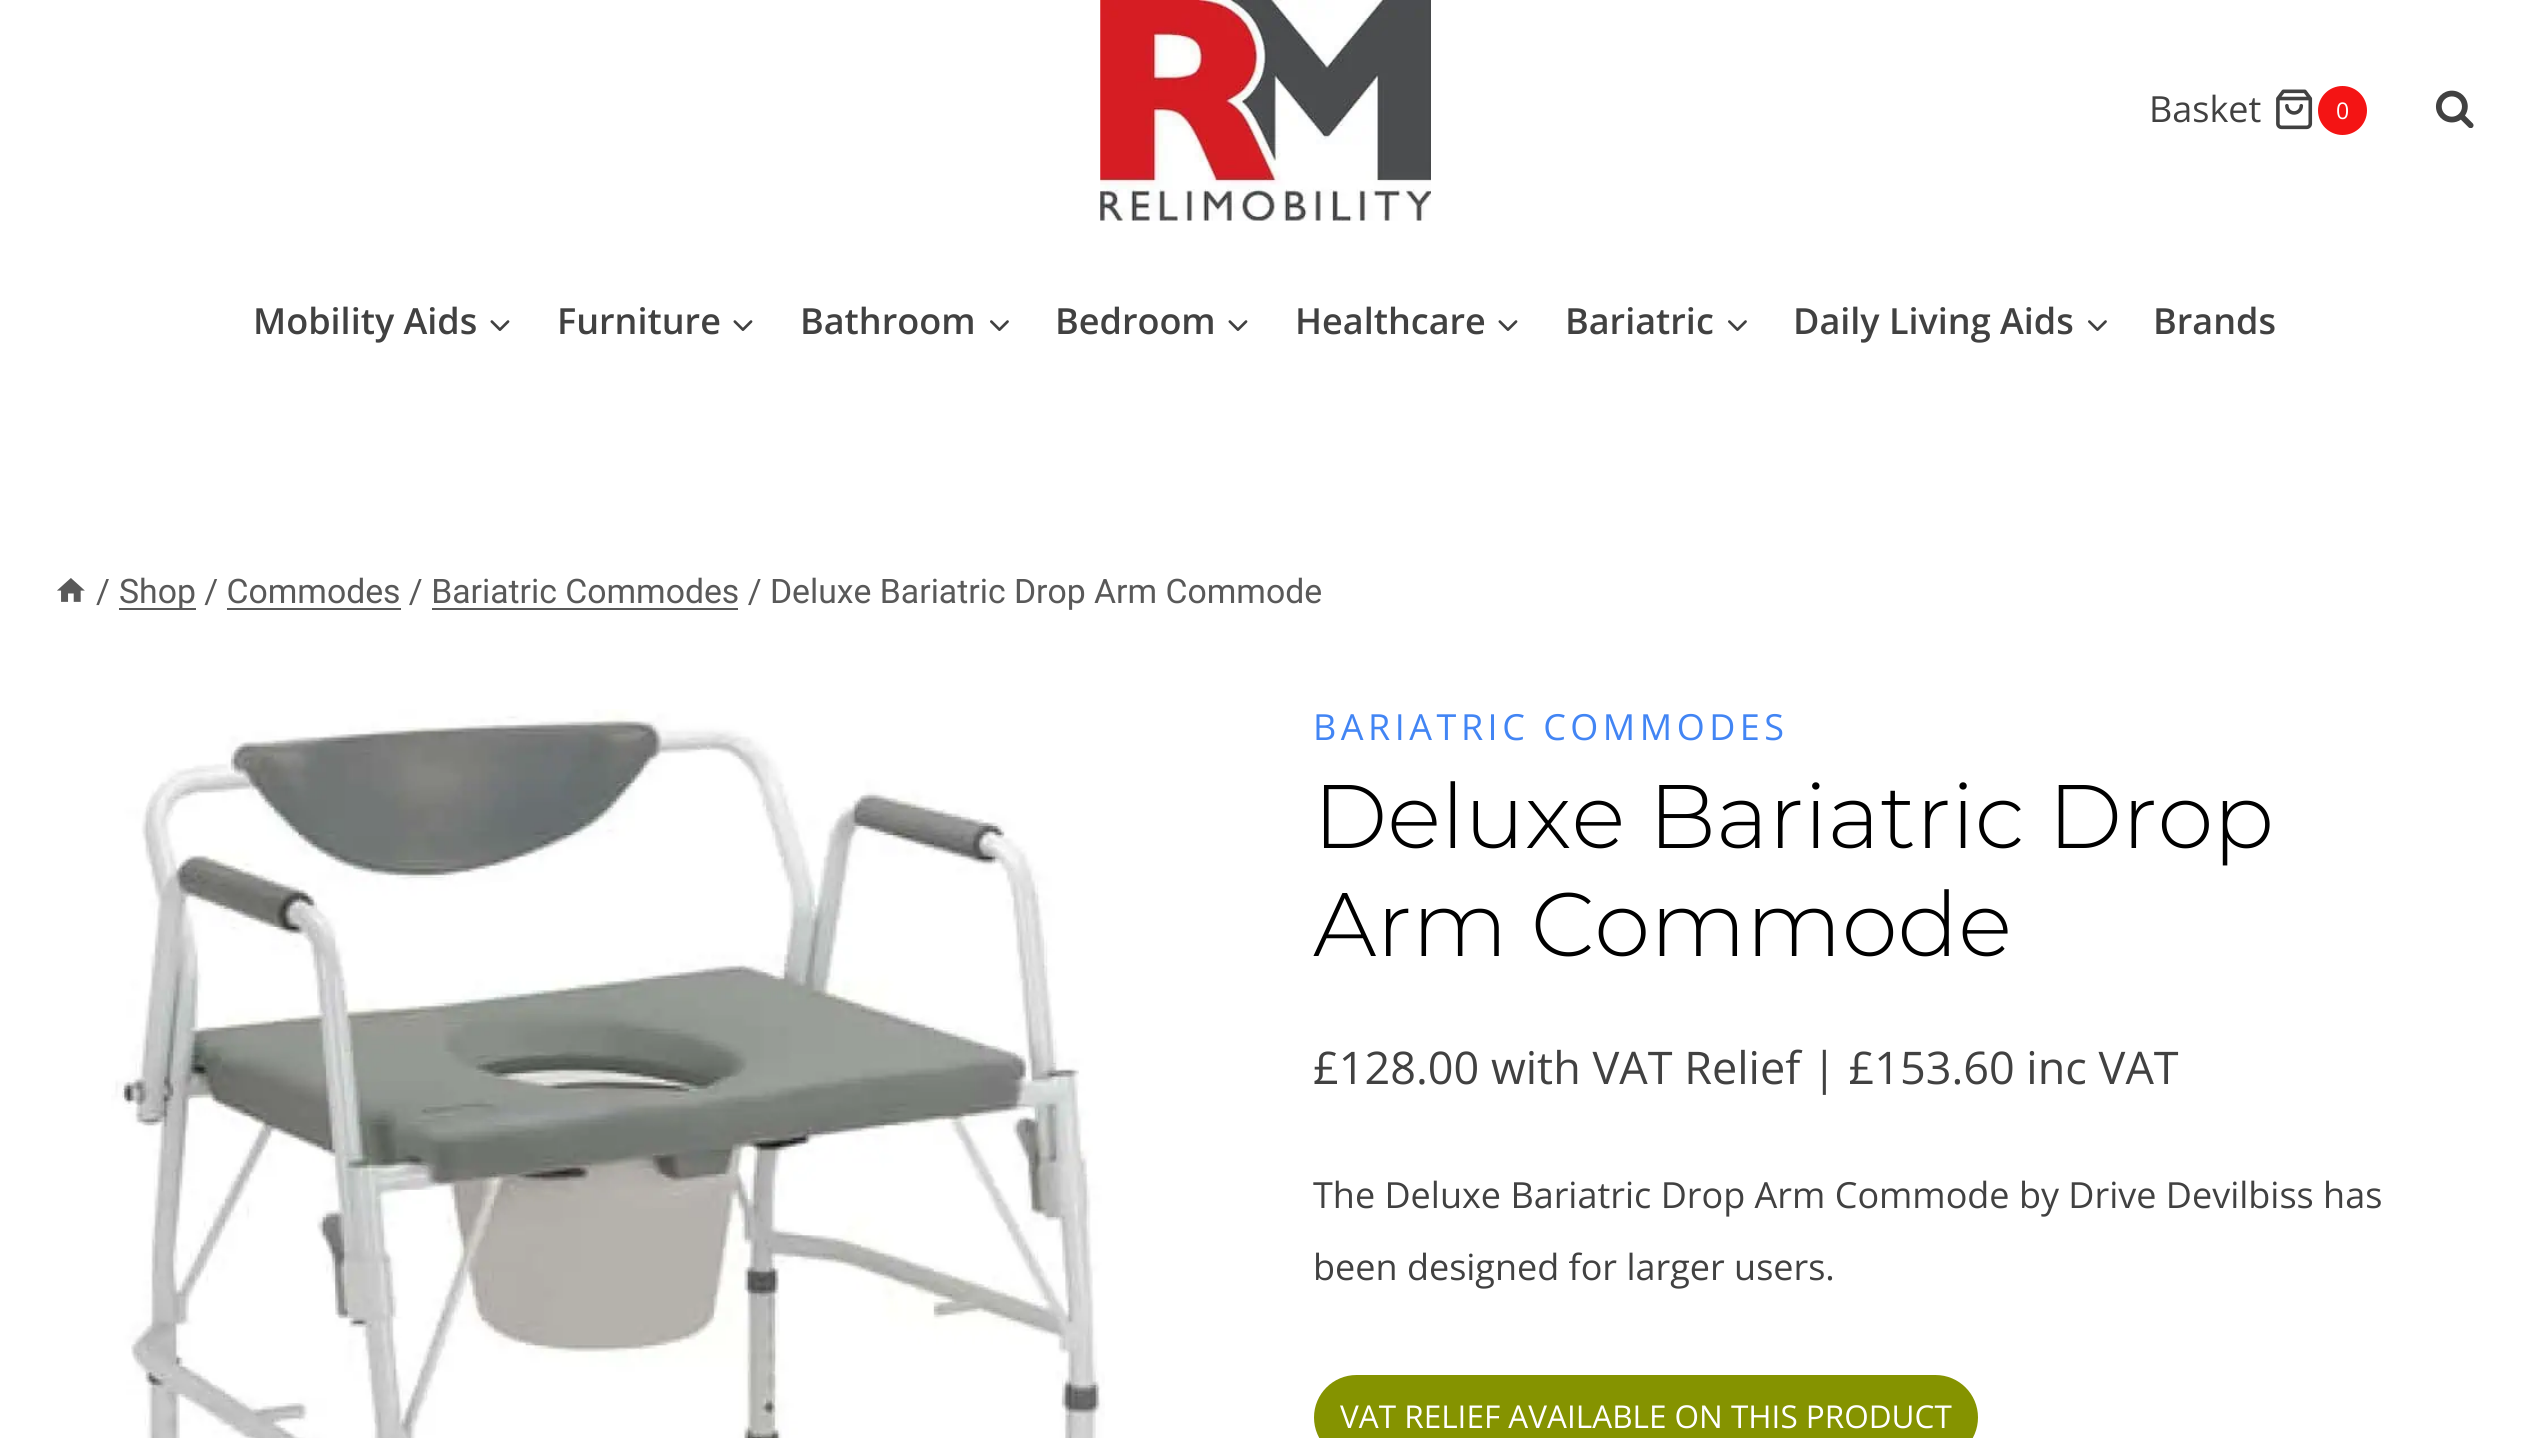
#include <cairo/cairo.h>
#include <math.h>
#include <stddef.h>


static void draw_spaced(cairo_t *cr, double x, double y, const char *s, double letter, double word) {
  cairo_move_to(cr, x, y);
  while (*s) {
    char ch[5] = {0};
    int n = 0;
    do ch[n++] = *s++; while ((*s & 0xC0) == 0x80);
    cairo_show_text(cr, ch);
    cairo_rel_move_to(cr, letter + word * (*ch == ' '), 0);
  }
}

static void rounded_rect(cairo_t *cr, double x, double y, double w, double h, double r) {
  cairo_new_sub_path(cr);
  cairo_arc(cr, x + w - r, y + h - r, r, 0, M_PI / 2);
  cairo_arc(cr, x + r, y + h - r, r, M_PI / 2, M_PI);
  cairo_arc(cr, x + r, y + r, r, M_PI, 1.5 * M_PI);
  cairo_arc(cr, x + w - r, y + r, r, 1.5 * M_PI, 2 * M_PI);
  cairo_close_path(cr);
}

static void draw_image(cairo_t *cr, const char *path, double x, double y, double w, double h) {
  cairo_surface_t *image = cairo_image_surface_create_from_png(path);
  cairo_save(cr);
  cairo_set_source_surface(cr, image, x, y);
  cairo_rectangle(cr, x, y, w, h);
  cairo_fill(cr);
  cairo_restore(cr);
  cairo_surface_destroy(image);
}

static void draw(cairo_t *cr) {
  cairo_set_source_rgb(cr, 1, 1, 1);
  cairo_paint(cr);
  draw_image(cr, "images/1.png", 1100, 0, 331, 221);
  draw_image(cr, "images/2.png", 2276, 89, 37, 41);
  cairo_set_source_rgb(cr, 244 / 255.0, 20 / 255.0, 20 / 255.0);
  cairo_arc(cr, 2342.5, 110.5, 24.5, 0, 2 * M_PI);
  cairo_fill(cr);
  draw_image(cr, "images/3.png", 2435, 90, 39, 38);
  draw_image(cr, "images/4.png", 490, 320, 20, 11);
  draw_image(cr, "images/4.png", 733, 320, 20, 11);
  draw_image(cr, "images/5.png", 990, 320, 19, 11);
  draw_image(cr, "images/4.png", 1228, 320, 20, 11);
  draw_image(cr, "images/4.png", 1498, 320, 20, 11);
  draw_image(cr, "images/5.png", 1728, 320, 19, 11);
  draw_image(cr, "images/5.png", 2088, 320, 19, 11);
  draw_image(cr, "images/6.png", 57, 578, 28, 24);
  cairo_set_source_rgb(cr, 89 / 255.0, 89 / 255.0, 89 / 255.0);
  cairo_rectangle(cr, 119, 608, 77, 2);
  cairo_fill(cr);
  cairo_rectangle(cr, 227, 608, 174, 2);
  cairo_fill(cr);
  cairo_rectangle(cr, 432, 608, 306, 2);
  cairo_fill(cr);
  draw_image(cr, "images/7.png", 111, 709, 994, 729);
  cairo_set_source_rgb(cr, 133 / 255.0, 147 / 255.0, 0);
  rounded_rect(cr, 1314, 1375, 664, 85, 42.5);
  cairo_fill(cr);
  cairo_select_font_face(cr, "Open Sans", CAIRO_FONT_SLANT_NORMAL, CAIRO_FONT_WEIGHT_NORMAL);
  cairo_set_font_size(cr, 36);
  cairo_set_source_rgb(cr, 65 / 255.0, 65 / 255.0, 65 / 255.0);
  cairo_move_to(cr, 2149, 122);
  cairo_show_text(cr, "Basket");
  cairo_set_font_size(cr, 23);
  cairo_set_source_rgb(cr, 1, 1, 1);
  cairo_move_to(cr, 2336, 119);
  cairo_show_text(cr, "0");
  cairo_select_font_face(cr, "Open Sans SemiBold", CAIRO_FONT_SLANT_NORMAL, CAIRO_FONT_WEIGHT_NORMAL);
  cairo_set_font_size(cr, 36);
  cairo_set_source_rgb(cr, 65 / 255.0, 65 / 255.0, 65 / 255.0);
  cairo_move_to(cr, 253, 334);
  cairo_show_text(cr, "Mobility Aids");
  cairo_move_to(cr, 557, 334);
  cairo_show_text(cr, "Furniture");
  cairo_move_to(cr, 800, 334);
  cairo_show_text(cr, "Bathroom");
  cairo_move_to(cr, 1055, 334);
  cairo_show_text(cr, "Bedroom");
  cairo_move_to(cr, 1295, 334);
  cairo_show_text(cr, "Healthcare");
  cairo_move_to(cr, 1565, 334);
  cairo_show_text(cr, "Bariatric");
  cairo_move_to(cr, 1793, 334);
  cairo_show_text(cr, "Daily Living Aids");
  cairo_move_to(cr, 2153, 334);
  cairo_show_text(cr, "Brands");
  cairo_select_font_face(cr, "Roboto", CAIRO_FONT_SLANT_NORMAL, CAIRO_FONT_WEIGHT_NORMAL);
  cairo_set_font_size(cr, 33.75);
  cairo_set_source_rgb(cr, 89 / 255.0, 89 / 255.0, 89 / 255.0);
  cairo_move_to(cr, 96, 603);
  cairo_show_text(cr, "/");
  cairo_move_to(cr, 119, 603);
  cairo_show_text(cr, "Shop / Commodes / Bariatric Commodes / Deluxe Bariatric Drop Arm Commode");
  cairo_select_font_face(cr, "Open Sans", CAIRO_FONT_SLANT_NORMAL, CAIRO_FONT_WEIGHT_NORMAL);
  cairo_set_font_size(cr, 36);
  cairo_set_source_rgb(cr, 66 / 255.0, 133 / 255.0, 244 / 255.0);
  draw_spaced(cr, 1313, 740, "BARIATRIC COMMODES", 4.5, 0);
  cairo_select_font_face(cr, "Montserrat Light", CAIRO_FONT_SLANT_NORMAL, CAIRO_FONT_WEIGHT_NORMAL);
  cairo_set_font_size(cr, 90);
  cairo_set_source_rgb(cr, 0, 0, 0);
  cairo_move_to(cr, 1313, 848);
  cairo_show_text(cr, "Deluxe Bariatric Drop");
  cairo_move_to(cr, 1313, 956);
  cairo_show_text(cr, "Arm Commode");
  cairo_select_font_face(cr, "Open Sans", CAIRO_FONT_SLANT_NORMAL, CAIRO_FONT_WEIGHT_NORMAL);
  cairo_set_font_size(cr, 45);
  cairo_set_source_rgb(cr, 65 / 255.0, 65 / 255.0, 65 / 255.0);
  cairo_move_to(cr, 1313, 1084);
  cairo_show_text(cr, "£128.00 with VAT Relief | £153.60 inc VAT");
  cairo_set_font_size(cr, 36);
  cairo_move_to(cr, 1313, 1208);
  cairo_show_text(cr, "The Deluxe Bariatric Drop Arm Commode by Drive Devilbiss has");
  cairo_move_to(cr, 1313, 1280);
  cairo_show_text(cr, "been designed for larger users.");
  cairo_set_font_size(cr, 31.5);
  cairo_set_source_rgb(cr, 1, 1, 1);
  cairo_move_to(cr, 1340, 1428);
  cairo_show_text(cr, "VAT RELIEF AVAILABLE ON THIS PRODUCT");
}

int main(void) {
  cairo_surface_t *surface = cairo_image_surface_create(CAIRO_FORMAT_RGB24, 2528, 1438);
  cairo_t *cr = cairo_create(surface);
  cairo_font_options_t *options = cairo_font_options_create();
  cairo_font_options_set_hint_metrics(options, CAIRO_HINT_METRICS_OFF);
  cairo_font_options_set_hint_style(options, CAIRO_HINT_STYLE_NONE);
  cairo_set_font_options(cr, options);
  cairo_set_miter_limit(cr, 4);
  draw(cr);
  cairo_surface_write_to_png(surface, "out.png");
  cairo_font_options_destroy(options);
  cairo_destroy(cr);
  cairo_surface_destroy(surface);
  return 0;
}
